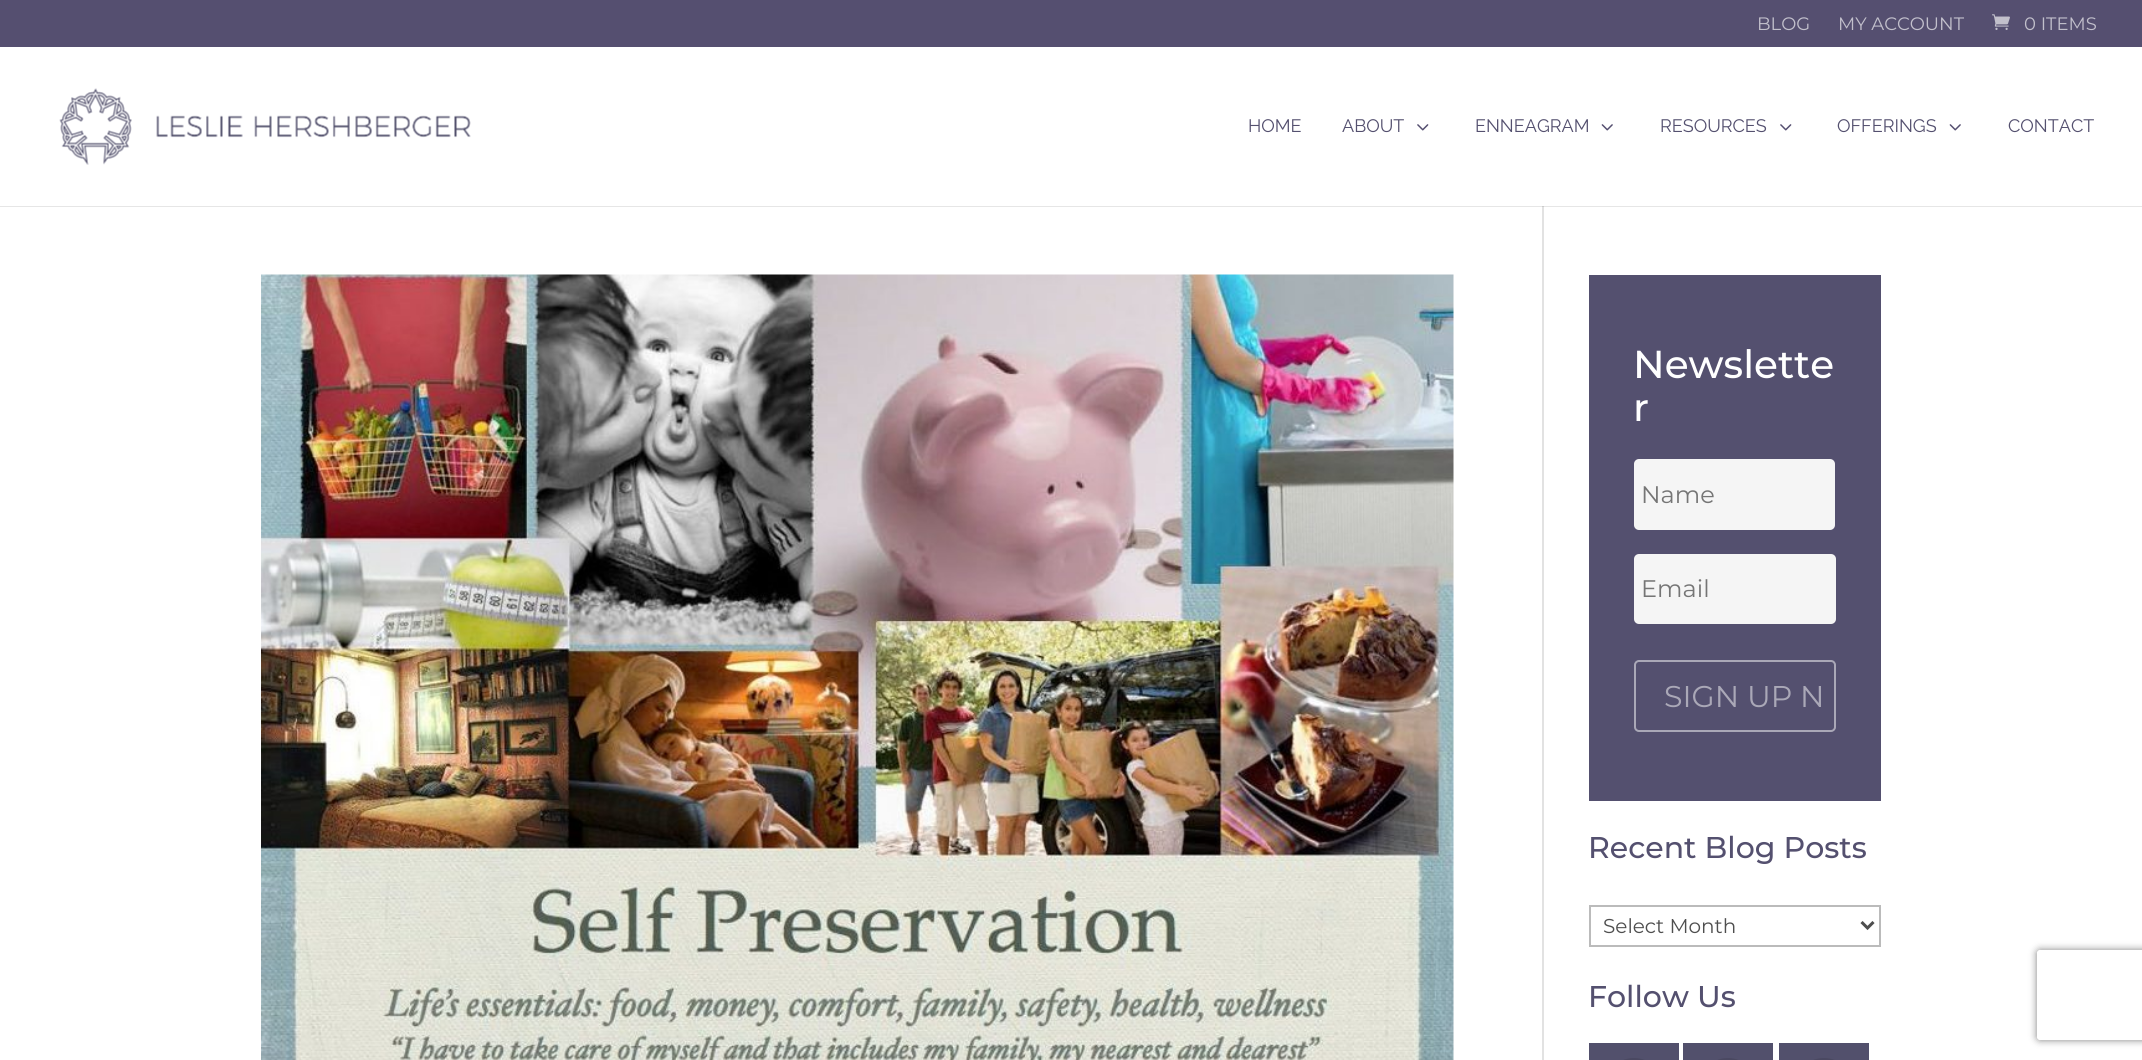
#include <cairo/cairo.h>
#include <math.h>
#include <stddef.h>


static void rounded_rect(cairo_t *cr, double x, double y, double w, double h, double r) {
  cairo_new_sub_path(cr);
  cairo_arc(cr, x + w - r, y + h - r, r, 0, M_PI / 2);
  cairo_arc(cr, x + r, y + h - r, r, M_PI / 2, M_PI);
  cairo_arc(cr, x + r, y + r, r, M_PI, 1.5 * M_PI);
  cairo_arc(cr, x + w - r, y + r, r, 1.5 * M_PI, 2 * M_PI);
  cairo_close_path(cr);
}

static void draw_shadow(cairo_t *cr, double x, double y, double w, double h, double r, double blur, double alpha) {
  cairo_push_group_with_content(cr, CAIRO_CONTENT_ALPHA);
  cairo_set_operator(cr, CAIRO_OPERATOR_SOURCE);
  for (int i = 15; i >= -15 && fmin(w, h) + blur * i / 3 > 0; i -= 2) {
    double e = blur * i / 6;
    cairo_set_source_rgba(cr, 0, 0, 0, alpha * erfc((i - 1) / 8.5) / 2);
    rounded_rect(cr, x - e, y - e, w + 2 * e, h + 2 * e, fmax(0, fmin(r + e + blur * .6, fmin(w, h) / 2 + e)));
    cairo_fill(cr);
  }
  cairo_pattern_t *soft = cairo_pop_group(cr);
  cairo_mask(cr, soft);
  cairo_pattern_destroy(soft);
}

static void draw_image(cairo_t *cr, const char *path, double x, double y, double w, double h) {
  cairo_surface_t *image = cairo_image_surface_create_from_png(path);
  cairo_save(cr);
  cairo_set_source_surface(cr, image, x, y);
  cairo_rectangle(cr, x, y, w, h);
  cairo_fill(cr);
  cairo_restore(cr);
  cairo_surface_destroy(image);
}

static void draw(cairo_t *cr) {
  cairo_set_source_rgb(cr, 1, 1, 1);
  cairo_paint(cr);
  cairo_set_source_rgb(cr, 230 / 255.0, 230 / 255.0, 230 / 255.0);
  cairo_rectangle(cr, 0, 206, 2142, 1);
  cairo_fill(cr);
  cairo_set_source_rgb(cr, 85 / 255.0, 79 / 255.0, 112 / 255.0);
  cairo_rectangle(cr, 0, 0, 2142, 47);
  cairo_fill(cr);
  draw_image(cr, "images/1.png", 1992, 14, 18, 16);
  draw_image(cr, "images/2.png", 59, 88, 412, 77);
  draw_image(cr, "images/3.png", 1417, 124, 12, 7);
  draw_image(cr, "images/4.png", 1601, 124, 12, 7);
  draw_image(cr, "images/3.png", 1780, 124, 12, 7);
  draw_image(cr, "images/4.png", 1949, 124, 12, 7);
  cairo_set_source_rgb(cr, 226 / 255.0, 226 / 255.0, 226 / 255.0);
  cairo_rectangle(cr, 1542, 207, 2, 853);
  cairo_fill(cr);
  cairo_set_source_rgb(cr, 203 / 255.0, 203 / 255.0, 203 / 255.0);
  cairo_rectangle(cr, 1542, 206, 2, 1);
  cairo_fill(cr);
  draw_image(cr, "images/5.png", 261, 274, 1193, 786);
  cairo_set_source_rgb(cr, 84 / 255.0, 80 / 255.0, 111 / 255.0);
  cairo_rectangle(cr, 1589, 275, 292, 526);
  cairo_fill(cr);
  cairo_set_source_rgb(cr, 245 / 255.0, 245 / 255.0, 245 / 255.0);
  rounded_rect(cr, 1634, 459, 201, 71, 5);
  cairo_fill(cr);
  rounded_rect(cr, 1634, 554, 202, 70, 5);
  cairo_fill(cr);
  cairo_save(cr);
  cairo_set_fill_rule(cr, CAIRO_FILL_RULE_EVEN_ODD);
  cairo_new_path(cr);
  cairo_move_to(cr, 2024, 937);
  cairo_line_to(cr, 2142, 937);
  cairo_line_to(cr, 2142, 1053);
  cairo_line_to(cr, 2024, 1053);
  cairo_close_path(cr);
  cairo_move_to(cr, 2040, 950);
  cairo_line_to(cr, 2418, 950);
  cairo_curve_to(cr, 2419.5, 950, 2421, 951.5, 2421, 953);
  cairo_line_to(cr, 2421, 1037);
  cairo_curve_to(cr, 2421, 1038.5, 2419.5, 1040, 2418, 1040);
  cairo_line_to(cr, 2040, 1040);
  cairo_curve_to(cr, 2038.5, 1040, 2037, 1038.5, 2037, 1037);
  cairo_line_to(cr, 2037, 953);
  cairo_curve_to(cr, 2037, 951.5, 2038.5, 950, 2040, 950);
  cairo_close_path(cr);
  cairo_clip(cr);
  cairo_set_source_rgb(cr, 128 / 255.0, 128 / 255.0, 128 / 255.0);
  draw_shadow(cr, 2037, 950, 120, 90, 3, 4, 1);
  cairo_restore(cr);
  rounded_rect(cr, 1635, 661, 200, 70, 4);
  cairo_set_source_rgb(cr, 170 / 255.0, 168 / 255.0, 183 / 255.0);
  cairo_stroke(cr);
  cairo_rectangle(cr, 1590, 906, 290, 40);
  cairo_set_source_rgb(cr, 187 / 255.0, 187 / 255.0, 187 / 255.0);
  cairo_stroke(cr);
  cairo_new_path(cr);
  cairo_move_to(cr, 1861.5, 922);
  cairo_line_to(cr, 1867.5, 928);
  cairo_line_to(cr, 1873.5, 922);
  cairo_set_source_rgb(cr, 78 / 255.0, 78 / 255.0, 78 / 255.0);
  cairo_set_line_width(cr, 3);
  cairo_stroke(cr);
  cairo_set_source_rgb(cr, 82 / 255.0, 80 / 255.0, 108 / 255.0);
  cairo_rectangle(cr, 1589, 1043, 90, 17);
  cairo_fill(cr);
  cairo_set_source_rgb(cr, 74 / 255.0, 72 / 255.0, 97 / 255.0);
  rounded_rect(cr, 1604, 1058, 60, 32, 30);
  cairo_fill(cr);
  cairo_set_source_rgb(cr, 82 / 255.0, 80 / 255.0, 108 / 255.0);
  cairo_rectangle(cr, 1683, 1043, 90, 17);
  cairo_fill(cr);
  cairo_set_source_rgb(cr, 74 / 255.0, 72 / 255.0, 97 / 255.0);
  rounded_rect(cr, 1698, 1058, 60, 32, 30);
  cairo_fill(cr);
  cairo_set_source_rgb(cr, 82 / 255.0, 80 / 255.0, 108 / 255.0);
  cairo_rectangle(cr, 1779, 1043, 90, 17);
  cairo_fill(cr);
  cairo_set_source_rgb(cr, 74 / 255.0, 72 / 255.0, 97 / 255.0);
  rounded_rect(cr, 1794, 1058, 60, 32, 30);
  cairo_fill(cr);
  cairo_select_font_face(cr, "Montserrat", CAIRO_FONT_SLANT_NORMAL, CAIRO_FONT_WEIGHT_NORMAL);
  cairo_set_font_size(cr, 18);
  cairo_set_source_rgb(cr, 194 / 255.0, 192 / 255.0, 204 / 255.0);
  cairo_move_to(cr, 1757, 30);
  cairo_show_text(cr, "BLOG");
  cairo_move_to(cr, 1838, 30);
  cairo_show_text(cr, "MY ACCOUNT");
  cairo_move_to(cr, 2024, 30);
  cairo_show_text(cr, "0 ITEMS");
  cairo_select_font_face(cr, "Raleway", CAIRO_FONT_SLANT_NORMAL, CAIRO_FONT_WEIGHT_NORMAL);
  cairo_set_source_rgb(cr, 84 / 255.0, 80 / 255.0, 111 / 255.0);
  cairo_move_to(cr, 1248, 132);
  cairo_show_text(cr, "HOME");
  cairo_move_to(cr, 1342, 132);
  cairo_show_text(cr, "ABOUT");
  cairo_move_to(cr, 1475, 132);
  cairo_show_text(cr, "ENNEAGRAM");
  cairo_move_to(cr, 1660, 132);
  cairo_show_text(cr, "RESOURCES");
  cairo_move_to(cr, 1837, 132);
  cairo_show_text(cr, "OFFERINGS");
  cairo_move_to(cr, 2008, 132);
  cairo_show_text(cr, "CONTACT");
  cairo_select_font_face(cr, "Montserrat Medium", CAIRO_FONT_SLANT_NORMAL, CAIRO_FONT_WEIGHT_NORMAL);
  cairo_set_font_size(cr, 39);
  cairo_set_source_rgb(cr, 1, 1, 1);
  cairo_move_to(cr, 1633, 378);
  cairo_show_text(cr, "Newslette");
  cairo_move_to(cr, 1633, 421);
  cairo_show_text(cr, "r");
  cairo_select_font_face(cr, "Montserrat", CAIRO_FONT_SLANT_NORMAL, CAIRO_FONT_WEIGHT_NORMAL);
  cairo_set_font_size(cr, 24);
  cairo_set_source_rgb(cr, 117 / 255.0, 117 / 255.0, 117 / 255.0);
  cairo_move_to(cr, 1641, 503);
  cairo_show_text(cr, "Name");
  cairo_move_to(cr, 1641, 597);
  cairo_show_text(cr, "Email");
  cairo_set_font_size(cr, 30);
  cairo_set_source_rgb(cr, 170 / 255.0, 168 / 255.0, 183 / 255.0);
  cairo_move_to(cr, 1664, 707);
  cairo_show_text(cr, "SIGN UP N");
  cairo_select_font_face(cr, "Montserrat Medium", CAIRO_FONT_SLANT_NORMAL, CAIRO_FONT_WEIGHT_NORMAL);
  cairo_set_source_rgb(cr, 84 / 255.0, 80 / 255.0, 111 / 255.0);
  cairo_move_to(cr, 1588, 858);
  cairo_show_text(cr, "Recent Blog Posts");
  cairo_select_font_face(cr, "Montserrat", CAIRO_FONT_SLANT_NORMAL, CAIRO_FONT_WEIGHT_NORMAL);
  cairo_set_font_size(cr, 20);
  cairo_set_source_rgb(cr, 78 / 255.0, 78 / 255.0, 78 / 255.0);
  cairo_move_to(cr, 1603, 933);
  cairo_show_text(cr, "Select Month");
  cairo_select_font_face(cr, "Montserrat Medium", CAIRO_FONT_SLANT_NORMAL, CAIRO_FONT_WEIGHT_NORMAL);
  cairo_set_font_size(cr, 30);
  cairo_set_source_rgb(cr, 84 / 255.0, 80 / 255.0, 111 / 255.0);
  cairo_move_to(cr, 1588, 1007);
  cairo_show_text(cr, "Follow Us");
}

int main(void) {
  cairo_surface_t *surface = cairo_image_surface_create(CAIRO_FORMAT_RGB24, 2142, 1060);
  cairo_t *cr = cairo_create(surface);
  cairo_font_options_t *options = cairo_font_options_create();
  cairo_font_options_set_hint_metrics(options, CAIRO_HINT_METRICS_OFF);
  cairo_font_options_set_hint_style(options, CAIRO_HINT_STYLE_NONE);
  cairo_set_font_options(cr, options);
  cairo_set_miter_limit(cr, 4);
  draw(cr);
  cairo_surface_write_to_png(surface, "out.png");
  cairo_font_options_destroy(options);
  cairo_destroy(cr);
  cairo_surface_destroy(surface);
  return 0;
}
